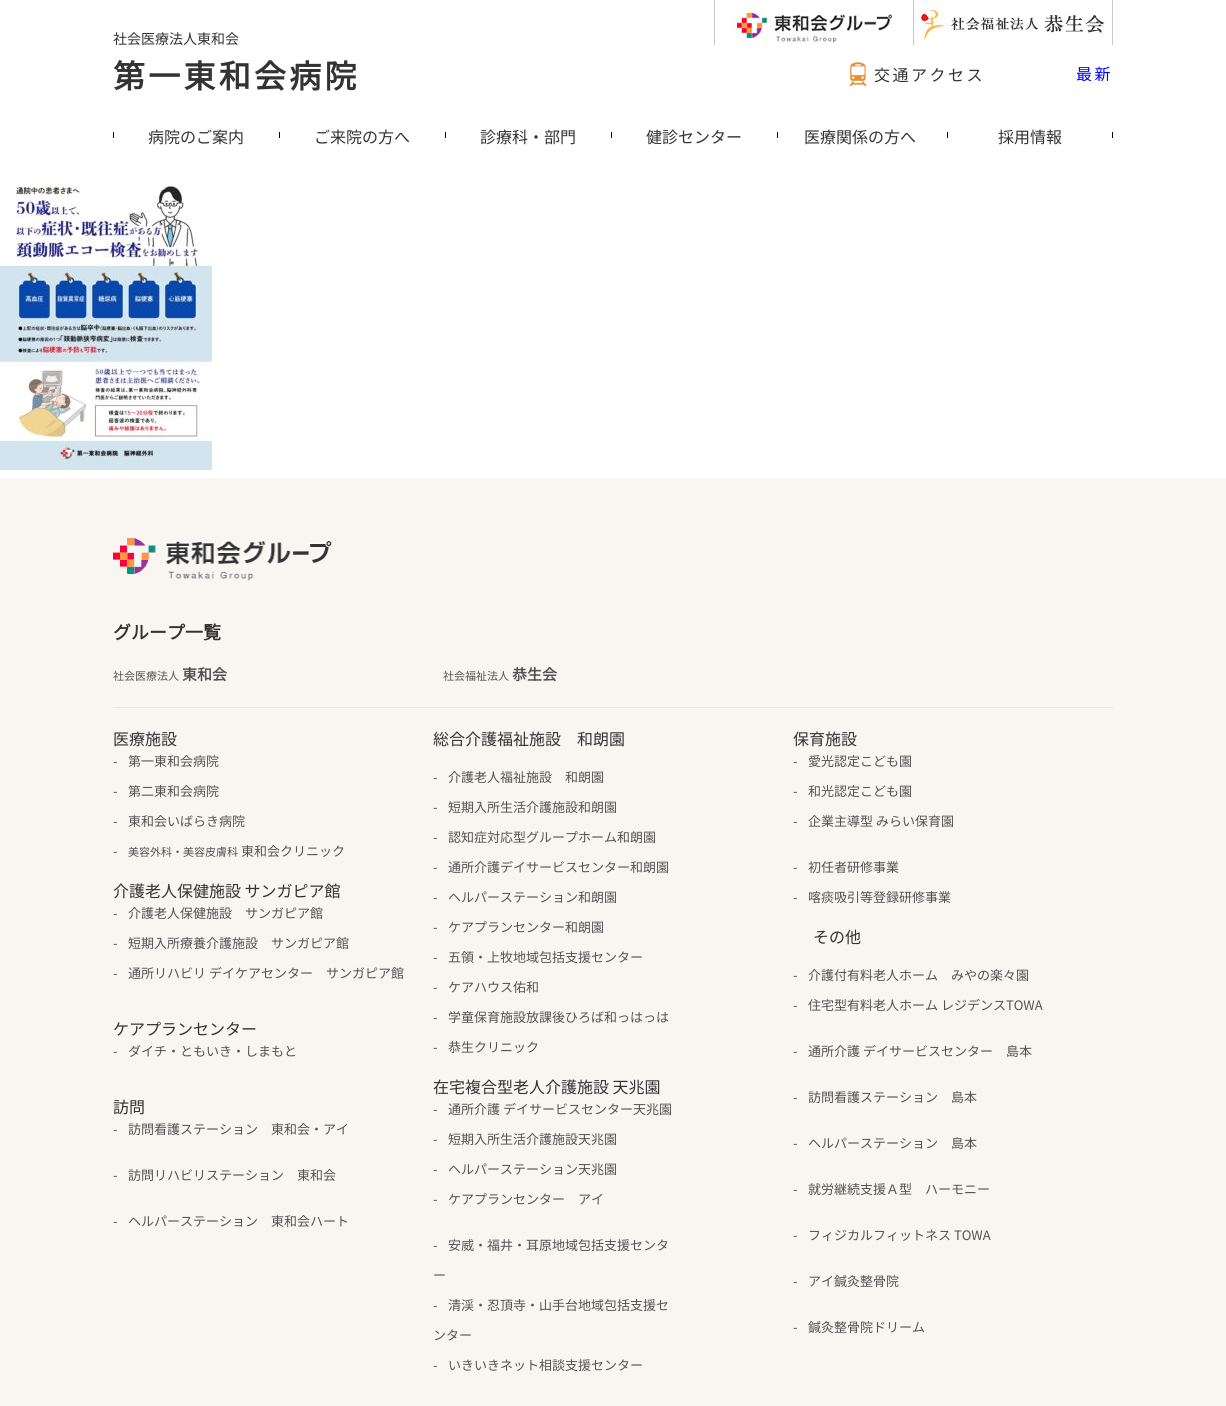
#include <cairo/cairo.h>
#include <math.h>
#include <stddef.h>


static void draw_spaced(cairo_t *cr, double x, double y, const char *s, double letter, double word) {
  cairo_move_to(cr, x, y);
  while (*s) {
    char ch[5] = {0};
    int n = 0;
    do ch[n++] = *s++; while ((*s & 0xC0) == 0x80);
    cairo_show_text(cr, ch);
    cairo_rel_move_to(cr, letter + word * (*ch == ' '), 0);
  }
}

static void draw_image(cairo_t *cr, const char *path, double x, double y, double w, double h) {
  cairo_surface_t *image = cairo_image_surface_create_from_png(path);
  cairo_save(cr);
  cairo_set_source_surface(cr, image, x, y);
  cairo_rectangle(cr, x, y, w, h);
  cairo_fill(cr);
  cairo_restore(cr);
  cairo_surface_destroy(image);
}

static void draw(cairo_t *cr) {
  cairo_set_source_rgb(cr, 1, 1, 1);
  cairo_paint(cr);
  cairo_set_source_rgb(cr, 200 / 255.0, 200 / 255.0, 200 / 255.0);
  cairo_rectangle(cr, 913, 0, 1, 45);
  cairo_fill(cr);
  cairo_rectangle(cr, 714, 0, 1, 45);
  cairo_fill(cr);
  draw_image(cr, "images/1.png", 732, 8, 160, 37);
  cairo_rectangle(cr, 1112, 0, 1, 45);
  cairo_fill(cr);
  draw_image(cr, "images/2.png", 914, 8, 191, 37);
  draw_image(cr, "images/3.png", 849, 62, 18, 24);
  cairo_set_source_rgb(cr, 0, 0, 0);
  cairo_rectangle(cr, 113, 132, 1, 6);
  cairo_fill(cr);
  cairo_rectangle(cr, 279, 132, 1, 6);
  cairo_fill(cr);
  cairo_rectangle(cr, 445, 132, 1, 6);
  cairo_fill(cr);
  cairo_rectangle(cr, 611, 132, 1, 6);
  cairo_fill(cr);
  cairo_rectangle(cr, 777, 132, 1, 6);
  cairo_fill(cr);
  cairo_rectangle(cr, 947, 132, 1, 6);
  cairo_fill(cr);
  cairo_rectangle(cr, 1112, 132, 1, 6);
  cairo_fill(cr);
  draw_image(cr, "images/4.png", 0, 186, 212, 284);
  cairo_set_source_rgb(cr, 249 / 255.0, 246 / 255.0, 241 / 255.0);
  cairo_rectangle(cr, 0, 478, 1226, 928);
  cairo_fill(cr);
  draw_image(cr, "images/5.png", 113, 538, 219, 43);
  cairo_set_source_rgb(cr, 234 / 255.0, 231 / 255.0, 226 / 255.0);
  cairo_rectangle(cr, 113, 707, 1000, 1);
  cairo_fill(cr);
  cairo_select_font_face(cr, "Noto Sans JP Thin", CAIRO_FONT_SLANT_NORMAL, CAIRO_FONT_WEIGHT_NORMAL);
  cairo_set_font_size(cr, 14);
  cairo_set_source_rgb(cr, 51 / 255.0, 51 / 255.0, 51 / 255.0);
  cairo_move_to(cr, 113, 44);
  cairo_show_text(cr, "社会医療法人東和会");
  cairo_select_font_face(cr, "Noto Sans JP", CAIRO_FONT_SLANT_NORMAL, CAIRO_FONT_WEIGHT_BOLD);
  cairo_set_font_size(cr, 32);
  draw_spaced(cr, 113, 88, "第一東和会病院", 3.25, 0);
  cairo_select_font_face(cr, "Noto Sans JP Thin", CAIRO_FONT_SLANT_NORMAL, CAIRO_FONT_WEIGHT_NORMAL);
  cairo_set_font_size(cr, 16);
  draw_spaced(cr, 874, 81, "交通アクセス", 2.5, 0);
  cairo_save(cr);
  cairo_rectangle(cr, 1013, 65, 100, 16);
  cairo_clip(cr);
  cairo_set_source_rgb(cr, 0, 0, 1);
  draw_spaced(cr, 1076, 80, "最新", 2.5, 0);
  cairo_restore(cr);
  cairo_move_to(cr, 148, 143);
  cairo_show_text(cr, "病院のご案内");
  cairo_move_to(cr, 314, 143);
  cairo_show_text(cr, "ご来院の方へ");
  cairo_move_to(cr, 480, 143);
  cairo_show_text(cr, "診療科・部門");
  cairo_move_to(cr, 646, 143);
  cairo_show_text(cr, "健診センター");
  cairo_move_to(cr, 804, 143);
  cairo_show_text(cr, "医療関係の方へ");
  cairo_move_to(cr, 998, 143);
  cairo_show_text(cr, "採用情報");
  cairo_select_font_face(cr, "Noto Sans JP", CAIRO_FONT_SLANT_NORMAL, CAIRO_FONT_WEIGHT_BOLD);
  cairo_set_font_size(cr, 18);
  cairo_move_to(cr, 113, 639);
  cairo_show_text(cr, "グループ一覧");
  cairo_select_font_face(cr, "Noto Sans JP Thin", CAIRO_FONT_SLANT_NORMAL, CAIRO_FONT_WEIGHT_NORMAL);
  cairo_set_font_size(cr, 11);
  cairo_set_source_rgb(cr, 83 / 255.0, 83 / 255.0, 83 / 255.0);
  cairo_move_to(cr, 113, 680);
  cairo_show_text(cr, "社会医療法人");
  cairo_select_font_face(cr, "Noto Sans JP", CAIRO_FONT_SLANT_NORMAL, CAIRO_FONT_WEIGHT_BOLD);
  cairo_set_font_size(cr, 15);
  cairo_move_to(cr, 182, 680);
  cairo_show_text(cr, "東和会");
  cairo_select_font_face(cr, "Noto Sans JP Thin", CAIRO_FONT_SLANT_NORMAL, CAIRO_FONT_WEIGHT_NORMAL);
  cairo_set_font_size(cr, 11);
  cairo_move_to(cr, 443, 680);
  cairo_show_text(cr, "社会福祉法人");
  cairo_select_font_face(cr, "Noto Sans JP", CAIRO_FONT_SLANT_NORMAL, CAIRO_FONT_WEIGHT_BOLD);
  cairo_set_font_size(cr, 15);
  cairo_move_to(cr, 512, 680);
  cairo_show_text(cr, "恭生会");
  cairo_select_font_face(cr, "Noto Sans JP Thin", CAIRO_FONT_SLANT_NORMAL, CAIRO_FONT_WEIGHT_NORMAL);
  cairo_set_font_size(cr, 16);
  cairo_set_source_rgb(cr, 51 / 255.0, 51 / 255.0, 51 / 255.0);
  cairo_move_to(cr, 113, 745);
  cairo_show_text(cr, "医療施設");
  cairo_set_font_size(cr, 13);
  cairo_set_source_rgb(cr, 83 / 255.0, 83 / 255.0, 83 / 255.0);
  cairo_move_to(cr, 113, 766);
  cairo_show_text(cr, "-");
  cairo_move_to(cr, 128, 766);
  cairo_show_text(cr, "第一東和会病院");
  cairo_move_to(cr, 113, 796);
  cairo_show_text(cr, "-");
  cairo_move_to(cr, 128, 796);
  cairo_show_text(cr, "第二東和会病院");
  cairo_move_to(cr, 113, 826);
  cairo_show_text(cr, "-");
  cairo_move_to(cr, 128, 826);
  cairo_show_text(cr, "東和会いばらき病院");
  cairo_move_to(cr, 113, 856);
  cairo_show_text(cr, "-");
  cairo_set_font_size(cr, 11);
  cairo_move_to(cr, 128, 856);
  cairo_show_text(cr, "美容外科・美容皮膚科");
  cairo_set_font_size(cr, 13);
  cairo_move_to(cr, 241, 856);
  cairo_show_text(cr, "東和会クリニック");
  cairo_set_font_size(cr, 16);
  cairo_set_source_rgb(cr, 51 / 255.0, 51 / 255.0, 51 / 255.0);
  cairo_move_to(cr, 113, 897);
  cairo_show_text(cr, "介護老人保健施設 サンガピア館");
  cairo_set_font_size(cr, 13);
  cairo_set_source_rgb(cr, 83 / 255.0, 83 / 255.0, 83 / 255.0);
  cairo_move_to(cr, 113, 918);
  cairo_show_text(cr, "-");
  cairo_move_to(cr, 128, 918);
  cairo_show_text(cr, "介護老人保健施設　サンガピア館");
  cairo_move_to(cr, 113, 948);
  cairo_show_text(cr, "-");
  cairo_move_to(cr, 128, 948);
  cairo_show_text(cr, "短期入所療養介護施設　サンガピア館");
  cairo_move_to(cr, 113, 978);
  cairo_show_text(cr, "-");
  cairo_move_to(cr, 128, 978);
  cairo_show_text(cr, "通所リハビリ デイケアセンター　サンガピア館");
  cairo_set_font_size(cr, 16);
  cairo_set_source_rgb(cr, 51 / 255.0, 51 / 255.0, 51 / 255.0);
  cairo_move_to(cr, 113, 1035);
  cairo_show_text(cr, "ケアプランセンター");
  cairo_set_font_size(cr, 13);
  cairo_set_source_rgb(cr, 83 / 255.0, 83 / 255.0, 83 / 255.0);
  cairo_move_to(cr, 113, 1056);
  cairo_show_text(cr, "-");
  cairo_move_to(cr, 128, 1056);
  cairo_show_text(cr, "ダイチ・ともいき・しまもと");
  cairo_set_font_size(cr, 16);
  cairo_set_source_rgb(cr, 51 / 255.0, 51 / 255.0, 51 / 255.0);
  cairo_move_to(cr, 113, 1113);
  cairo_show_text(cr, "訪問");
  cairo_set_font_size(cr, 13);
  cairo_set_source_rgb(cr, 83 / 255.0, 83 / 255.0, 83 / 255.0);
  cairo_move_to(cr, 113, 1134);
  cairo_show_text(cr, "-");
  cairo_move_to(cr, 128, 1134);
  cairo_show_text(cr, "訪問看護ステーション　東和会・アイ");
  cairo_move_to(cr, 113, 1180);
  cairo_show_text(cr, "-");
  cairo_move_to(cr, 128, 1180);
  cairo_show_text(cr, "訪問リハビリステーション　東和会");
  cairo_move_to(cr, 113, 1226);
  cairo_show_text(cr, "-");
  cairo_move_to(cr, 128, 1226);
  cairo_show_text(cr, "ヘルパーステーション　東和会ハート");
  cairo_set_font_size(cr, 16);
  cairo_set_source_rgb(cr, 51 / 255.0, 51 / 255.0, 51 / 255.0);
  cairo_move_to(cr, 433, 745);
  cairo_show_text(cr, "総合介護福祉施設　和朗園");
  cairo_set_font_size(cr, 13);
  cairo_set_source_rgb(cr, 83 / 255.0, 83 / 255.0, 83 / 255.0);
  cairo_move_to(cr, 433, 782);
  cairo_show_text(cr, "-");
  cairo_move_to(cr, 448, 782);
  cairo_show_text(cr, "介護老人福祉施設　和朗園");
  cairo_move_to(cr, 433, 812);
  cairo_show_text(cr, "-");
  cairo_move_to(cr, 448, 812);
  cairo_show_text(cr, "短期入所生活介護施設和朗園");
  cairo_move_to(cr, 433, 842);
  cairo_show_text(cr, "-");
  cairo_move_to(cr, 448, 842);
  cairo_show_text(cr, "認知症対応型グループホーム和朗園");
  cairo_move_to(cr, 433, 872);
  cairo_show_text(cr, "-");
  cairo_move_to(cr, 448, 872);
  cairo_show_text(cr, "通所介護デイサービスセンター和朗園");
  cairo_move_to(cr, 433, 902);
  cairo_show_text(cr, "-");
  cairo_move_to(cr, 448, 902);
  cairo_show_text(cr, "ヘルパーステーション和朗園");
  cairo_move_to(cr, 433, 932);
  cairo_show_text(cr, "-");
  cairo_move_to(cr, 448, 932);
  cairo_show_text(cr, "ケアプランセンター和朗園");
  cairo_move_to(cr, 433, 962);
  cairo_show_text(cr, "-");
  cairo_move_to(cr, 448, 962);
  cairo_show_text(cr, "五領・上牧地域包括支援センター");
  cairo_move_to(cr, 433, 992);
  cairo_show_text(cr, "-");
  cairo_move_to(cr, 448, 992);
  cairo_show_text(cr, "ケアハウス佑和");
  cairo_move_to(cr, 433, 1022);
  cairo_show_text(cr, "-");
  cairo_move_to(cr, 448, 1022);
  cairo_show_text(cr, "学童保育施設放課後ひろば和っはっは");
  cairo_move_to(cr, 433, 1052);
  cairo_show_text(cr, "-");
  cairo_move_to(cr, 448, 1052);
  cairo_show_text(cr, "恭生クリニック");
  cairo_set_font_size(cr, 16);
  cairo_set_source_rgb(cr, 51 / 255.0, 51 / 255.0, 51 / 255.0);
  cairo_move_to(cr, 433, 1093);
  cairo_show_text(cr, "在宅複合型老人介護施設 天兆園");
  cairo_set_font_size(cr, 13);
  cairo_set_source_rgb(cr, 83 / 255.0, 83 / 255.0, 83 / 255.0);
  cairo_move_to(cr, 433, 1114);
  cairo_show_text(cr, "-");
  cairo_move_to(cr, 448, 1114);
  cairo_show_text(cr, "通所介護 デイサービスセンター天兆園");
  cairo_move_to(cr, 433, 1144);
  cairo_show_text(cr, "-");
  cairo_move_to(cr, 448, 1144);
  cairo_show_text(cr, "短期入所生活介護施設天兆園");
  cairo_move_to(cr, 433, 1174);
  cairo_show_text(cr, "-");
  cairo_move_to(cr, 448, 1174);
  cairo_show_text(cr, "ヘルパーステーション天兆園");
  cairo_move_to(cr, 433, 1204);
  cairo_show_text(cr, "-");
  cairo_move_to(cr, 448, 1204);
  cairo_show_text(cr, "ケアプランセンター　アイ");
  cairo_move_to(cr, 433, 1250);
  cairo_show_text(cr, "-");
  cairo_move_to(cr, 448, 1250);
  cairo_show_text(cr, "安威・福井・耳原地域包括支援センタ");
  cairo_move_to(cr, 433, 1280);
  cairo_show_text(cr, "ー");
  cairo_move_to(cr, 433, 1310);
  cairo_show_text(cr, "-");
  cairo_move_to(cr, 448, 1310);
  cairo_show_text(cr, "清渓・忍頂寺・山手台地域包括支援セ");
  cairo_move_to(cr, 433, 1340);
  cairo_show_text(cr, "ンター");
  cairo_move_to(cr, 433, 1370);
  cairo_show_text(cr, "-");
  cairo_move_to(cr, 448, 1370);
  cairo_show_text(cr, "いきいきネット相談支援センター");
  cairo_set_font_size(cr, 16);
  cairo_set_source_rgb(cr, 51 / 255.0, 51 / 255.0, 51 / 255.0);
  cairo_move_to(cr, 793, 745);
  cairo_show_text(cr, "保育施設");
  cairo_set_font_size(cr, 13);
  cairo_set_source_rgb(cr, 83 / 255.0, 83 / 255.0, 83 / 255.0);
  cairo_move_to(cr, 793, 766);
  cairo_show_text(cr, "-");
  cairo_move_to(cr, 808, 766);
  cairo_show_text(cr, "愛光認定こども園");
  cairo_move_to(cr, 793, 796);
  cairo_show_text(cr, "-");
  cairo_move_to(cr, 808, 796);
  cairo_show_text(cr, "和光認定こども園");
  cairo_move_to(cr, 793, 826);
  cairo_show_text(cr, "-");
  cairo_move_to(cr, 808, 826);
  cairo_show_text(cr, "企業主導型 みらい保育園");
  cairo_move_to(cr, 793, 872);
  cairo_show_text(cr, "-");
  cairo_move_to(cr, 808, 872);
  cairo_show_text(cr, "初任者研修事業");
  cairo_move_to(cr, 793, 902);
  cairo_show_text(cr, "-");
  cairo_move_to(cr, 808, 902);
  cairo_show_text(cr, "喀痰吸引等登録研修事業");
  cairo_set_font_size(cr, 16);
  cairo_set_source_rgb(cr, 51 / 255.0, 51 / 255.0, 51 / 255.0);
  cairo_move_to(cr, 813, 943);
  cairo_show_text(cr, "その他");
  cairo_set_font_size(cr, 13);
  cairo_set_source_rgb(cr, 83 / 255.0, 83 / 255.0, 83 / 255.0);
  cairo_move_to(cr, 793, 980);
  cairo_show_text(cr, "-");
  cairo_move_to(cr, 808, 980);
  cairo_show_text(cr, "介護付有料老人ホーム　みやの楽々園");
  cairo_move_to(cr, 793, 1010);
  cairo_show_text(cr, "-");
  cairo_move_to(cr, 808, 1010);
  cairo_show_text(cr, "住宅型有料老人ホーム レジデンスTOWA");
  cairo_move_to(cr, 793, 1056);
  cairo_show_text(cr, "-");
  cairo_move_to(cr, 808, 1056);
  cairo_show_text(cr, "通所介護 デイサービスセンター　島本");
  cairo_move_to(cr, 793, 1102);
  cairo_show_text(cr, "-");
  cairo_move_to(cr, 808, 1102);
  cairo_show_text(cr, "訪問看護ステーション　島本");
  cairo_move_to(cr, 793, 1148);
  cairo_show_text(cr, "-");
  cairo_move_to(cr, 808, 1148);
  cairo_show_text(cr, "ヘルパーステーション　島本");
  cairo_move_to(cr, 793, 1194);
  cairo_show_text(cr, "-");
  cairo_move_to(cr, 808, 1194);
  cairo_show_text(cr, "就労継続支援Ａ型　ハーモニー");
  cairo_move_to(cr, 793, 1240);
  cairo_show_text(cr, "-");
  cairo_move_to(cr, 808, 1240);
  cairo_show_text(cr, "フィジカルフィットネス TOWA");
  cairo_move_to(cr, 793, 1286);
  cairo_show_text(cr, "-");
  cairo_move_to(cr, 808, 1286);
  cairo_show_text(cr, "アイ鍼灸整骨院");
  cairo_move_to(cr, 793, 1332);
  cairo_show_text(cr, "-");
  cairo_move_to(cr, 808, 1332);
  cairo_show_text(cr, "鍼灸整骨院ドリーム");
}

int main(void) {
  cairo_surface_t *surface = cairo_image_surface_create(CAIRO_FORMAT_RGB24, 1226, 1406);
  cairo_t *cr = cairo_create(surface);
  cairo_font_options_t *options = cairo_font_options_create();
  cairo_font_options_set_hint_metrics(options, CAIRO_HINT_METRICS_OFF);
  cairo_font_options_set_hint_style(options, CAIRO_HINT_STYLE_NONE);
  cairo_set_font_options(cr, options);
  cairo_set_miter_limit(cr, 4);
  draw(cr);
  cairo_surface_write_to_png(surface, "out.png");
  cairo_font_options_destroy(options);
  cairo_destroy(cr);
  cairo_surface_destroy(surface);
  return 0;
}
